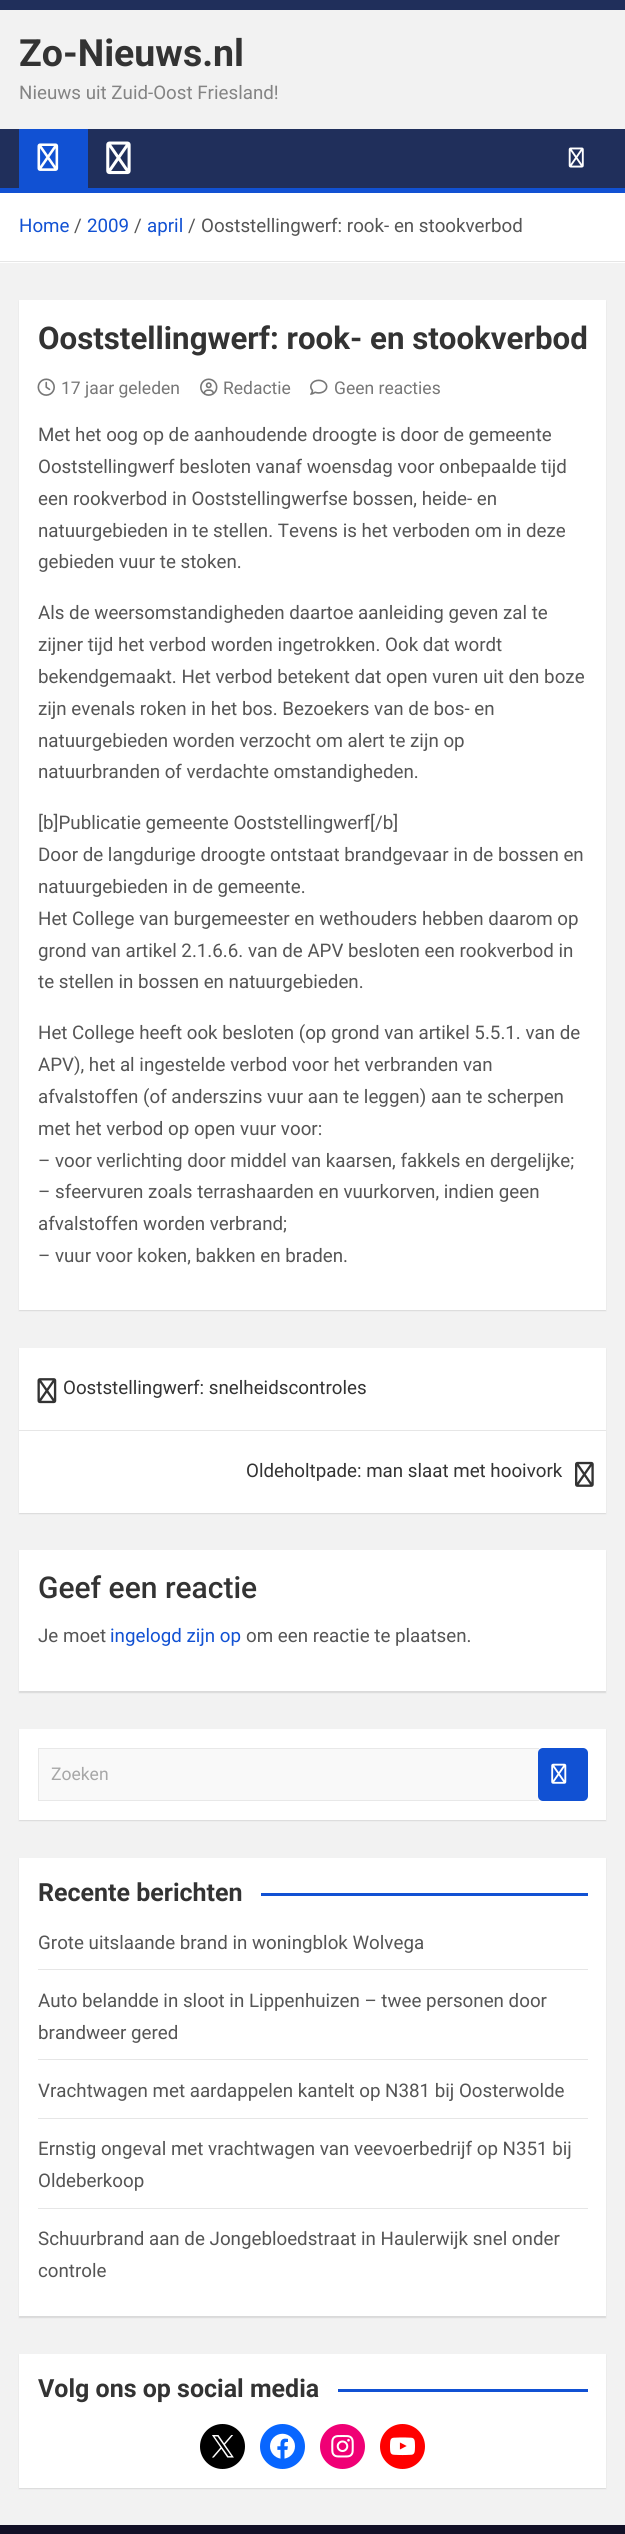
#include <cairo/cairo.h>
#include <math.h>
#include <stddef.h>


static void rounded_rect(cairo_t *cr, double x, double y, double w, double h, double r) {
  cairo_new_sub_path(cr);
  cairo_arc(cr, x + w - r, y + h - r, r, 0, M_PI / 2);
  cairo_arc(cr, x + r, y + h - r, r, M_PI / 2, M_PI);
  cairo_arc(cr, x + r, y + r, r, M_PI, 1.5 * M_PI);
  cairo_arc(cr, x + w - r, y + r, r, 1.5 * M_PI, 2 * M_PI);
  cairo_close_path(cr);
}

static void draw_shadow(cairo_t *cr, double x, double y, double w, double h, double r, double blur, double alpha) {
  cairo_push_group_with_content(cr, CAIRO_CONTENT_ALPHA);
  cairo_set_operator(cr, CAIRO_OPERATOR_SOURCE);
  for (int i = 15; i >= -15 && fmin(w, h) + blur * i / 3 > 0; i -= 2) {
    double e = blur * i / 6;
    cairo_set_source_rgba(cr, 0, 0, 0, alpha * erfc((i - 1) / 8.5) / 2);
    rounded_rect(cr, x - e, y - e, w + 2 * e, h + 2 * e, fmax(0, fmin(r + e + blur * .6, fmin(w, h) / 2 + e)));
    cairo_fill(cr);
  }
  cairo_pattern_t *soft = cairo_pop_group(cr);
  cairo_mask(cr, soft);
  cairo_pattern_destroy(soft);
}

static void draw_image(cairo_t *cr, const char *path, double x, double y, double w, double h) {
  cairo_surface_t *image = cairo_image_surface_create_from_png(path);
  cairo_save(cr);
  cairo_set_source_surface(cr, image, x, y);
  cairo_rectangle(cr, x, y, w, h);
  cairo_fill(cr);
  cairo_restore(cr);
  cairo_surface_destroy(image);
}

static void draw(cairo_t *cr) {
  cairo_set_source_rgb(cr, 242 / 255.0, 242 / 255.0, 242 / 255.0);
  cairo_paint(cr);
  cairo_set_source_rgb(cr, 32 / 255.0, 47 / 255.0, 91 / 255.0);
  cairo_rectangle(cr, 0, 0, 625, 10);
  cairo_fill(cr);
  cairo_rectangle(cr, 0, 129, 625, 59);
  cairo_fill(cr);
  cairo_set_source_rgb(cr, 17 / 255.0, 81 / 255.0, 211 / 255.0);
  cairo_rectangle(cr, 19, 129, 69, 59);
  cairo_fill(cr);
  draw_image(cr, "images/1.png", 37, 143, 22, 28);
  draw_image(cr, "images/2.png", 106, 141, 25, 34);
  draw_image(cr, "images/3.png", 568, 147, 16, 21);
  cairo_rectangle(cr, 0, 188, 625, 5);
  cairo_fill(cr);
  cairo_set_source_rgb(cr, 1, 1, 1);
  cairo_rectangle(cr, 0, 193, 625, 70);
  cairo_fill(cr);
  cairo_set_source_rgb(cr, 230 / 255.0, 230 / 255.0, 230 / 255.0);
  cairo_rectangle(cr, 0, 261, 625, 1);
  cairo_fill(cr);
  cairo_set_source_rgb(cr, 0, 0, 0);
  draw_shadow(cr, 19, 301, 587, 1010, 0, 0.5, 0.1);
  cairo_set_source_rgb(cr, 1, 1, 1);
  cairo_rectangle(cr, 19, 300, 587, 1010);
  cairo_fill(cr);
  draw_image(cr, "images/4.png", 37, 378, 18, 18);
  draw_image(cr, "images/5.png", 200, 378, 18, 18);
  draw_image(cr, "images/6.png", 310, 379, 18, 16);
  cairo_set_source_rgb(cr, 0, 0, 0);
  draw_shadow(cr, 19, 1349, 587, 165, 0, 0.5, 0.1);
  cairo_set_source_rgb(cr, 1, 1, 1);
  cairo_rectangle(cr, 19, 1348, 587, 165);
  cairo_fill(cr);
  cairo_set_source_rgb(cr, 230 / 255.0, 230 / 255.0, 230 / 255.0);
  cairo_rectangle(cr, 19, 1430, 587, 1);
  cairo_fill(cr);
  draw_image(cr, "images/7.png", 37, 1378, 20, 26);
  draw_image(cr, "images/8.png", 575, 1461, 19, 26);
  cairo_set_source_rgb(cr, 0, 0, 0);
  draw_shadow(cr, 19, 1551, 587, 142, 0, 0.5, 0.1);
  cairo_set_source_rgb(cr, 1, 1, 1);
  cairo_rectangle(cr, 19, 1550, 587, 141);
  cairo_fill(cr);
  cairo_set_source_rgb(cr, 0, 0, 0);
  draw_shadow(cr, 19, 1730, 587, 91, 0, 0.5, 0.1);
  cairo_set_source_rgb(cr, 1, 1, 1);
  cairo_rectangle(cr, 19, 1729, 587, 91);
  cairo_fill(cr);
  cairo_set_source_rgb(cr, 249 / 255.0, 249 / 255.0, 249 / 255.0);
  cairo_rectangle(cr, 39, 1749, 500, 51);
  cairo_fill(cr);
  cairo_set_source_rgb(cr, 232 / 255.0, 232 / 255.0, 232 / 255.0);
  cairo_new_path(cr);
  cairo_move_to(cr, 38, 1748);
  cairo_line_to(cr, 539, 1748);
  cairo_line_to(cr, 539, 1749);
  cairo_line_to(cr, 39, 1749);
  cairo_close_path(cr);
  cairo_fill(cr);
  cairo_new_path(cr);
  cairo_move_to(cr, 539, 1801);
  cairo_line_to(cr, 38, 1801);
  cairo_line_to(cr, 39, 1800);
  cairo_line_to(cr, 539, 1800);
  cairo_close_path(cr);
  cairo_fill(cr);
  cairo_set_source_rgba(cr, 0, 0, 0, 0.09);
  cairo_new_path(cr);
  cairo_move_to(cr, 38, 1801);
  cairo_line_to(cr, 38, 1748);
  cairo_line_to(cr, 39, 1749);
  cairo_line_to(cr, 39, 1800);
  cairo_close_path(cr);
  cairo_fill(cr);
  cairo_set_source_rgb(cr, 17 / 255.0, 81 / 255.0, 211 / 255.0);
  rounded_rect(cr, 538, 1748, 50, 53, 5);
  cairo_fill(cr);
  draw_image(cr, "images/9.png", 551, 1763, 16, 21);
  cairo_set_source_rgb(cr, 0, 0, 0);
  draw_shadow(cr, 19, 1859, 587, 459, 0, 0.5, 0.1);
  cairo_set_source_rgb(cr, 1, 1, 1);
  cairo_rectangle(cr, 19, 1858, 587, 458);
  cairo_fill(cr);
  cairo_set_source_rgb(cr, 17 / 255.0, 81 / 255.0, 211 / 255.0);
  cairo_rectangle(cr, 261, 1893, 327, 3);
  cairo_fill(cr);
  cairo_set_source_rgb(cr, 230 / 255.0, 230 / 255.0, 230 / 255.0);
  cairo_rectangle(cr, 38, 1969, 550, 1);
  cairo_fill(cr);
  cairo_rectangle(cr, 38, 2059, 550, 1);
  cairo_fill(cr);
  cairo_rectangle(cr, 38, 2118, 550, 1);
  cairo_fill(cr);
  cairo_rectangle(cr, 38, 2208, 550, 1);
  cairo_fill(cr);
  cairo_set_source_rgb(cr, 0, 0, 0);
  draw_shadow(cr, 19, 2355, 587, 134, 0, 0.5, 0.1);
  cairo_set_source_rgb(cr, 1, 1, 1);
  cairo_rectangle(cr, 19, 2354, 587, 134);
  cairo_fill(cr);
  cairo_set_source_rgb(cr, 17 / 255.0, 81 / 255.0, 211 / 255.0);
  cairo_rectangle(cr, 338, 2389, 250, 3);
  cairo_fill(cr);
  cairo_set_source_rgb(cr, 0, 0, 0);
  cairo_arc(cr, 222.5, 2446.5, 22.5, 0, 2 * M_PI);
  cairo_fill(cr);
  draw_image(cr, "images/10.png", 212, 2435, 22, 23);
  cairo_set_source_rgb(cr, 8 / 255.0, 102 / 255.0, 1);
  cairo_arc(cr, 282.5, 2446.5, 22.5, 0, 2 * M_PI);
  cairo_fill(cr);
  draw_image(cr, "images/11.png", 270, 2433, 25, 26);
  cairo_set_source_rgb(cr, 240 / 255.0, 0, 117 / 255.0);
  cairo_arc(cr, 342.5, 2446.5, 22.5, 0, 2 * M_PI);
  cairo_fill(cr);
  draw_image(cr, "images/12.png", 331, 2435, 23, 23);
  cairo_set_source_rgb(cr, 1, 0, 0);
  cairo_arc(cr, 402.5, 2446.5, 22.5, 0, 2 * M_PI);
  cairo_fill(cr);
  draw_image(cr, "images/13.png", 390, 2437, 25, 19);
  cairo_set_source_rgb(cr, 18 / 255.0, 16 / 255.0, 38 / 255.0);
  cairo_rectangle(cr, 0, 2525, 625, 9);
  cairo_fill(cr);
  cairo_select_font_face(cr, "Roboto", CAIRO_FONT_SLANT_NORMAL, CAIRO_FONT_WEIGHT_BOLD);
  cairo_set_font_size(cr, 37.5);
  cairo_set_source_rgb(cr, 51 / 255.0, 51 / 255.0, 51 / 255.0);
  cairo_move_to(cr, 19, 66);
  cairo_show_text(cr, "Zo-Nieuws.nl");
  cairo_select_font_face(cr, "Roboto", CAIRO_FONT_SLANT_NORMAL, CAIRO_FONT_WEIGHT_NORMAL);
  cairo_set_font_size(cr, 18.75);
  cairo_set_source_rgb(cr, 132 / 255.0, 132 / 255.0, 132 / 255.0);
  cairo_move_to(cr, 19, 99);
  cairo_show_text(cr, "Nieuws uit Zuid-Oost Friesland!");
  cairo_set_source_rgb(cr, 17 / 255.0, 81 / 255.0, 211 / 255.0);
  cairo_move_to(cr, 19, 232);
  cairo_show_text(cr, "Home");
  cairo_set_source_rgb(cr, 85 / 255.0, 85 / 255.0, 85 / 255.0);
  cairo_move_to(cr, 74, 232);
  cairo_show_text(cr, "/");
  cairo_set_source_rgb(cr, 17 / 255.0, 81 / 255.0, 211 / 255.0);
  cairo_move_to(cr, 87, 232);
  cairo_show_text(cr, "2009");
  cairo_set_source_rgb(cr, 85 / 255.0, 85 / 255.0, 85 / 255.0);
  cairo_move_to(cr, 134, 232);
  cairo_show_text(cr, "/");
  cairo_set_source_rgb(cr, 17 / 255.0, 81 / 255.0, 211 / 255.0);
  cairo_move_to(cr, 147, 232);
  cairo_show_text(cr, "april");
  cairo_set_source_rgb(cr, 85 / 255.0, 85 / 255.0, 85 / 255.0);
  cairo_move_to(cr, 188, 232);
  cairo_show_text(cr, "/");
  cairo_move_to(cr, 201, 232);
  cairo_show_text(cr, "Ooststellingwerf: rook- en stookverbod");
  cairo_select_font_face(cr, "Roboto", CAIRO_FONT_SLANT_NORMAL, CAIRO_FONT_WEIGHT_BOLD);
  cairo_set_font_size(cr, 31.25);
  cairo_set_source_rgb(cr, 51 / 255.0, 51 / 255.0, 51 / 255.0);
  cairo_move_to(cr, 38, 349);
  cairo_show_text(cr, "Ooststellingwerf: rook- en stookverbod");
  cairo_select_font_face(cr, "Roboto", CAIRO_FONT_SLANT_NORMAL, CAIRO_FONT_WEIGHT_NORMAL);
  cairo_set_font_size(cr, 17.5);
  cairo_set_source_rgb(cr, 119 / 255.0, 119 / 255.0, 119 / 255.0);
  cairo_move_to(cr, 61, 394);
  cairo_show_text(cr, "17 jaar geleden");
  cairo_move_to(cr, 223, 394);
  cairo_show_text(cr, "Redactie");
  cairo_move_to(cr, 334, 394);
  cairo_show_text(cr, "Geen reacties");
  cairo_set_font_size(cr, 18.75);
  cairo_set_source_rgb(cr, 85 / 255.0, 85 / 255.0, 85 / 255.0);
  cairo_move_to(cr, 38, 441);
  cairo_show_text(cr, "Met het oog op de aanhoudende droogte is door de gemeente");
  cairo_move_to(cr, 38, 473);
  cairo_show_text(cr, "Ooststellingwerf besloten vanaf woensdag voor onbepaalde tijd");
  cairo_move_to(cr, 38, 505);
  cairo_show_text(cr, "een rookverbod in Ooststellingwerfse bossen, heide- en");
  cairo_move_to(cr, 38, 537);
  cairo_show_text(cr, "natuurgebieden in te stellen. Tevens is het verboden om in deze");
  cairo_move_to(cr, 38, 568);
  cairo_show_text(cr, "gebieden vuur te stoken.");
  cairo_move_to(cr, 38, 619);
  cairo_show_text(cr, "Als de weersomstandigheden daartoe aanleiding geven zal te");
  cairo_move_to(cr, 38, 651);
  cairo_show_text(cr, "zijner tijd het verbod worden ingetrokken. Ook dat wordt");
  cairo_move_to(cr, 38, 683);
  cairo_show_text(cr, "bekendgemaakt. Het verbod betekent dat open vuren uit den boze");
  cairo_move_to(cr, 38, 715);
  cairo_show_text(cr, "zijn evenals roken in het bos. Bezoekers van de bos- en");
  cairo_move_to(cr, 38, 747);
  cairo_show_text(cr, "natuurgebieden worden verzocht om alert te zijn op");
  cairo_move_to(cr, 38, 778);
  cairo_show_text(cr, "natuurbranden of verdachte omstandigheden.");
  cairo_move_to(cr, 38, 829);
  cairo_show_text(cr, "[b]Publicatie gemeente Ooststellingwerf[/b]");
  cairo_move_to(cr, 38, 861);
  cairo_show_text(cr, "Door de langdurige droogte ontstaat brandgevaar in de bossen en");
  cairo_move_to(cr, 38, 893);
  cairo_show_text(cr, "natuurgebieden in de gemeente.");
  cairo_move_to(cr, 38, 925);
  cairo_show_text(cr, "Het College van burgemeester en wethouders hebben daarom op");
  cairo_move_to(cr, 38, 957);
  cairo_show_text(cr, "grond van artikel 2.1.6.6. van de APV besloten een rookverbod in");
  cairo_move_to(cr, 38, 988);
  cairo_show_text(cr, "te stellen in bossen en natuurgebieden.");
  cairo_move_to(cr, 38, 1039);
  cairo_show_text(cr, "Het College heeft ook besloten (op grond van artikel 5.5.1. van de");
  cairo_move_to(cr, 38, 1071);
  cairo_show_text(cr, "APV), het al ingestelde verbod voor het verbranden van");
  cairo_move_to(cr, 38, 1103);
  cairo_show_text(cr, "afvalstoffen (of anderszins vuur aan te leggen) aan te scherpen");
  cairo_move_to(cr, 38, 1135);
  cairo_show_text(cr, "met het verbod op open vuur voor:");
  cairo_move_to(cr, 38, 1167);
  cairo_show_text(cr, "– voor verlichting door middel van kaarsen, fakkels en dergelijke;");
  cairo_move_to(cr, 38, 1198);
  cairo_show_text(cr, "– sfeervuren zoals terrashaarden en vuurkorven, indien geen");
  cairo_move_to(cr, 38, 1230);
  cairo_show_text(cr, "afvalstoffen worden verbrand;");
  cairo_move_to(cr, 38, 1262);
  cairo_show_text(cr, "– vuur voor koken, bakken en braden.");
  cairo_set_source_rgb(cr, 51 / 255.0, 51 / 255.0, 51 / 255.0);
  cairo_move_to(cr, 63, 1394);
  cairo_show_text(cr, "Ooststellingwerf: snelheidscontroles");
  cairo_move_to(cr, 246, 1477);
  cairo_show_text(cr, "Oldeholtpade: man slaat met hooivork");
  cairo_select_font_face(cr, "Roboto Medium", CAIRO_FONT_SLANT_NORMAL, CAIRO_FONT_WEIGHT_NORMAL);
  cairo_set_font_size(cr, 30);
  cairo_move_to(cr, 38, 1598);
  cairo_show_text(cr, "Geef een reactie");
  cairo_select_font_face(cr, "Roboto", CAIRO_FONT_SLANT_NORMAL, CAIRO_FONT_WEIGHT_NORMAL);
  cairo_set_font_size(cr, 18.75);
  cairo_set_source_rgb(cr, 85 / 255.0, 85 / 255.0, 85 / 255.0);
  cairo_move_to(cr, 38, 1642);
  cairo_show_text(cr, "Je moet");
  cairo_set_source_rgb(cr, 17 / 255.0, 81 / 255.0, 211 / 255.0);
  cairo_move_to(cr, 110, 1642);
  cairo_show_text(cr, "ingelogd zijn op");
  cairo_set_source_rgb(cr, 85 / 255.0, 85 / 255.0, 85 / 255.0);
  cairo_move_to(cr, 246, 1642);
  cairo_show_text(cr, "om een reactie te plaatsen.");
  cairo_set_font_size(cr, 17.5);
  cairo_set_source_rgb(cr, 167 / 255.0, 167 / 255.0, 167 / 255.0);
  cairo_move_to(cr, 51, 1780);
  cairo_show_text(cr, "Zoeken");
  cairo_select_font_face(cr, "Roboto", CAIRO_FONT_SLANT_NORMAL, CAIRO_FONT_WEIGHT_BOLD);
  cairo_set_font_size(cr, 25);
  cairo_set_source_rgb(cr, 51 / 255.0, 51 / 255.0, 51 / 255.0);
  cairo_move_to(cr, 38, 1901);
  cairo_show_text(cr, "Recente berichten");
  cairo_select_font_face(cr, "Roboto", CAIRO_FONT_SLANT_NORMAL, CAIRO_FONT_WEIGHT_NORMAL);
  cairo_set_font_size(cr, 18.75);
  cairo_set_source_rgb(cr, 85 / 255.0, 85 / 255.0, 85 / 255.0);
  cairo_move_to(cr, 38, 1949);
  cairo_show_text(cr, "Grote uitslaande brand in woningblok Wolvega");
  cairo_move_to(cr, 38, 2007);
  cairo_show_text(cr, "Auto belandde in sloot in Lippenhuizen – twee personen door");
  cairo_move_to(cr, 38, 2039);
  cairo_show_text(cr, "brandweer gered");
  cairo_move_to(cr, 38, 2097);
  cairo_show_text(cr, "Vrachtwagen met aardappelen kantelt op N381 bij Oosterwolde");
  cairo_move_to(cr, 38, 2155);
  cairo_show_text(cr, "Ernstig ongeval met vrachtwagen van veevoerbedrijf op N351 bij");
  cairo_move_to(cr, 38, 2187);
  cairo_show_text(cr, "Oldeberkoop");
  cairo_move_to(cr, 38, 2245);
  cairo_show_text(cr, "Schuurbrand aan de Jongebloedstraat in Haulerwijk snel onder");
  cairo_move_to(cr, 38, 2277);
  cairo_show_text(cr, "controle");
  cairo_select_font_face(cr, "Roboto", CAIRO_FONT_SLANT_NORMAL, CAIRO_FONT_WEIGHT_BOLD);
  cairo_set_font_size(cr, 25);
  cairo_set_source_rgb(cr, 51 / 255.0, 51 / 255.0, 51 / 255.0);
  cairo_move_to(cr, 38, 2397);
  cairo_show_text(cr, "Volg ons op social media");
}

int main(void) {
  cairo_surface_t *surface = cairo_image_surface_create(CAIRO_FORMAT_RGB24, 625, 2534);
  cairo_t *cr = cairo_create(surface);
  cairo_font_options_t *options = cairo_font_options_create();
  cairo_font_options_set_hint_metrics(options, CAIRO_HINT_METRICS_OFF);
  cairo_font_options_set_hint_style(options, CAIRO_HINT_STYLE_NONE);
  cairo_set_font_options(cr, options);
  cairo_set_miter_limit(cr, 4);
  draw(cr);
  cairo_surface_write_to_png(surface, "out.png");
  cairo_font_options_destroy(options);
  cairo_destroy(cr);
  cairo_surface_destroy(surface);
  return 0;
}
